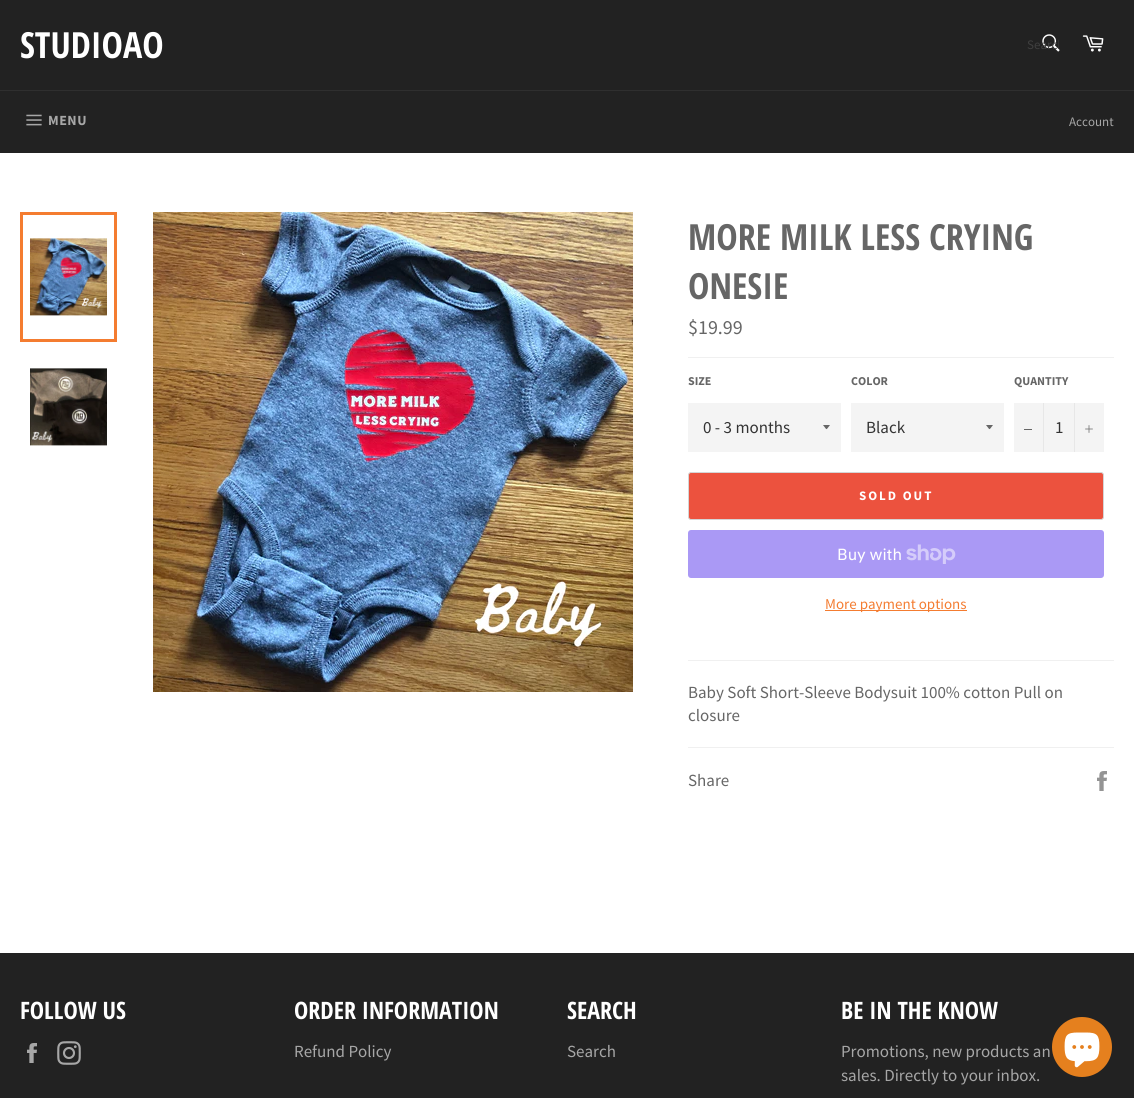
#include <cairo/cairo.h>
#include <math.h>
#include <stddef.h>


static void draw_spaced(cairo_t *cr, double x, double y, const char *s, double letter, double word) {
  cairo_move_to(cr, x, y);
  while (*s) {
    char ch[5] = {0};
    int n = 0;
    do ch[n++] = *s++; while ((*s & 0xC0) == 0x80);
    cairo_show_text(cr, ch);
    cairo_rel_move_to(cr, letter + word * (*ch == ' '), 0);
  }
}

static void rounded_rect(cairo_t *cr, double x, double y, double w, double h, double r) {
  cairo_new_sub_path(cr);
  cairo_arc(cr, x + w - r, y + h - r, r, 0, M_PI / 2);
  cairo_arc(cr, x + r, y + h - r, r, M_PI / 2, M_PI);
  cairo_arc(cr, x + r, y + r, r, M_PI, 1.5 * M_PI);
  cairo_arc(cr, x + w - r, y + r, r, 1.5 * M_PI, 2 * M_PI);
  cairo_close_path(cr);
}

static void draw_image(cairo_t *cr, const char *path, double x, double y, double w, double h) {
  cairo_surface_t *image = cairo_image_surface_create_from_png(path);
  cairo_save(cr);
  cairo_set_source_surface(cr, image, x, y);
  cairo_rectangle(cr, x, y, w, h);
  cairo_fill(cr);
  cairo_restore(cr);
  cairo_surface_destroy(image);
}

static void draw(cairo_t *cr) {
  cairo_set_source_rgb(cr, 34 / 255.0, 34 / 255.0, 34 / 255.0);
  cairo_paint(cr);
  draw_image(cr, "images/1.png", 1042, 34, 18, 18);
  draw_image(cr, "images/2.png", 1082, 35, 22, 17);
  cairo_set_source_rgb(cr, 47 / 255.0, 47 / 255.0, 47 / 255.0);
  cairo_rectangle(cr, 0, 90, 1134, 1);
  cairo_fill(cr);
  draw_image(cr, "images/3.png", 26, 114, 16, 12);
  cairo_set_source_rgb(cr, 1, 1, 1);
  cairo_rectangle(cr, 0, 153, 1134, 800);
  cairo_fill(cr);
  draw_image(cr, "images/4.png", 30, 238, 77, 78);
  cairo_rectangle(cr, 21.5, 213.5, 94, 127);
  cairo_set_source_rgb(cr, 244 / 255.0, 124 / 255.0, 48 / 255.0);
  cairo_set_line_width(cr, 3);
  cairo_stroke(cr);
  draw_image(cr, "images/5.png", 30, 368, 77, 78);
  draw_image(cr, "images/6.png", 153, 212, 480, 480);
  cairo_set_source_rgb(cr, 240 / 255.0, 240 / 255.0, 240 / 255.0);
  cairo_rectangle(cr, 688, 357, 426, 1);
  cairo_fill(cr);
  cairo_set_source_rgb(cr, 244 / 255.0, 244 / 255.0, 244 / 255.0);
  cairo_rectangle(cr, 688, 403, 153, 49);
  cairo_fill(cr);
  cairo_set_source_rgb(cr, 102 / 255.0, 102 / 255.0, 102 / 255.0);
  cairo_new_path(cr);
  cairo_move_to(cr, 823, 425);
  cairo_curve_to(cr, 827.5, 430.5, 825.5, 430.5, 830, 425);
  cairo_close_path(cr);
  cairo_fill(cr);
  cairo_set_source_rgb(cr, 244 / 255.0, 244 / 255.0, 244 / 255.0);
  cairo_rectangle(cr, 851, 403, 153, 49);
  cairo_fill(cr);
  cairo_set_source_rgb(cr, 102 / 255.0, 102 / 255.0, 102 / 255.0);
  cairo_new_path(cr);
  cairo_move_to(cr, 986, 425);
  cairo_curve_to(cr, 990.5, 430.5, 988.5, 430.5, 993, 425);
  cairo_close_path(cr);
  cairo_fill(cr);
  cairo_set_source_rgb(cr, 244 / 255.0, 244 / 255.0, 244 / 255.0);
  cairo_rectangle(cr, 1014, 403, 90, 49);
  cairo_fill(cr);
  cairo_set_source_rgb(cr, 231 / 255.0, 231 / 255.0, 231 / 255.0);
  cairo_rectangle(cr, 1043, 403, 1, 49);
  cairo_fill(cr);
  cairo_set_source_rgb(cr, 102 / 255.0, 102 / 255.0, 102 / 255.0);
  cairo_rectangle(cr, 1024, 429, 8, 1);
  cairo_fill(cr);
  cairo_set_source_rgb(cr, 231 / 255.0, 231 / 255.0, 231 / 255.0);
  cairo_rectangle(cr, 1074, 403, 1, 49);
  cairo_fill(cr);
  draw_image(cr, "images/7.png", 1085, 425, 8, 8);
  cairo_set_source_rgb(cr, 236 / 255.0, 82 / 255.0, 62 / 255.0);
  rounded_rect(cr, 688.5, 472.5, 415, 47, 2.5);
  cairo_fill_preserve(cr);
  cairo_set_source_rgb(cr, 213 / 255.0, 213 / 255.0, 213 / 255.0);
  cairo_set_line_width(cr, 1);
  cairo_stroke(cr);
  cairo_set_source_rgb(cr, 170 / 255.0, 153 / 255.0, 245 / 255.0);
  rounded_rect(cr, 688, 530, 416, 48, 3);
  cairo_fill(cr);
  draw_image(cr, "images/8.png", 906, 544, 50, 20);
  cairo_set_source_rgb(cr, 244 / 255.0, 124 / 255.0, 48 / 255.0);
  cairo_rectangle(cr, 825, 610, 142, 1);
  cairo_fill(cr);
  cairo_set_source_rgb(cr, 240 / 255.0, 240 / 255.0, 240 / 255.0);
  cairo_rectangle(cr, 688, 660, 426, 1);
  cairo_fill(cr);
  cairo_rectangle(cr, 688, 747, 426, 1);
  cairo_fill(cr);
  draw_image(cr, "images/9.png", 1097, 771, 10, 20);
  draw_image(cr, "images/10.png", 27, 1043, 10, 20);
  draw_image(cr, "images/11.png", 57, 1041, 24, 24);
  cairo_set_source_rgb(cr, 229 / 255.0, 128 / 255.0, 30 / 255.0);
  cairo_arc(cr, 1082, 1047, 30, 0, 2 * M_PI);
  cairo_fill(cr);
  draw_image(cr, "images/12.png", 1064, 1032, 36, 36);
  cairo_select_font_face(cr, "Open Sans Condensed", CAIRO_FONT_SLANT_NORMAL, CAIRO_FONT_WEIGHT_BOLD);
  cairo_set_font_size(cr, 36);
  cairo_set_source_rgb(cr, 1, 1, 1);
  cairo_move_to(cr, 20, 58);
  cairo_show_text(cr, "STUDIOAO");
  cairo_save(cr);
  cairo_rectangle(cr, 1027, 36, 32, 17);
  cairo_clip(cr);
  cairo_select_font_face(cr, "Source Sans Pro", CAIRO_FONT_SLANT_NORMAL, CAIRO_FONT_WEIGHT_NORMAL);
  cairo_set_font_size(cr, 13);
  cairo_set_source_rgb(cr, 63 / 255.0, 63 / 255.0, 63 / 255.0);
  cairo_move_to(cr, 1027, 49);
  cairo_show_text(cr, "Search");
  cairo_restore(cr);
  cairo_select_font_face(cr, "Source Sans Pro", CAIRO_FONT_SLANT_NORMAL, CAIRO_FONT_WEIGHT_BOLD);
  cairo_set_font_size(cr, 14);
  cairo_set_source_rgb(cr, 167 / 255.0, 167 / 255.0, 167 / 255.0);
  draw_spaced(cr, 48, 125, "MENU", 0.5, 0);
  cairo_select_font_face(cr, "Source Sans Pro", CAIRO_FONT_SLANT_NORMAL, CAIRO_FONT_WEIGHT_NORMAL);
  cairo_set_font_size(cr, 13);
  cairo_move_to(cr, 1069, 126);
  cairo_show_text(cr, "Account");
  cairo_select_font_face(cr, "Open Sans Condensed", CAIRO_FONT_SLANT_NORMAL, CAIRO_FONT_WEIGHT_BOLD);
  cairo_set_font_size(cr, 36);
  cairo_set_source_rgb(cr, 102 / 255.0, 102 / 255.0, 102 / 255.0);
  cairo_move_to(cr, 688, 250);
  cairo_show_text(cr, "MORE MILK LESS CRYING");
  cairo_move_to(cr, 688, 299);
  cairo_show_text(cr, "ONESIE");
  cairo_select_font_face(cr, "Source Sans Pro", CAIRO_FONT_SLANT_NORMAL, CAIRO_FONT_WEIGHT_NORMAL);
  cairo_set_font_size(cr, 20);
  cairo_move_to(cr, 688, 334);
  cairo_show_text(cr, "$19.99");
  cairo_select_font_face(cr, "Source Sans Pro", CAIRO_FONT_SLANT_NORMAL, CAIRO_FONT_WEIGHT_BOLD);
  cairo_set_font_size(cr, 12);
  cairo_move_to(cr, 688, 385);
  cairo_show_text(cr, "SIZE");
  cairo_select_font_face(cr, "Source Sans Pro", CAIRO_FONT_SLANT_NORMAL, CAIRO_FONT_WEIGHT_NORMAL);
  cairo_set_font_size(cr, 17);
  cairo_set_source_rgb(cr, 51 / 255.0, 51 / 255.0, 51 / 255.0);
  cairo_move_to(cr, 703, 433);
  cairo_show_text(cr, "0 - 3 months");
  cairo_select_font_face(cr, "Source Sans Pro", CAIRO_FONT_SLANT_NORMAL, CAIRO_FONT_WEIGHT_BOLD);
  cairo_set_font_size(cr, 12);
  cairo_set_source_rgb(cr, 102 / 255.0, 102 / 255.0, 102 / 255.0);
  cairo_move_to(cr, 851, 385);
  cairo_show_text(cr, "COLOR");
  cairo_select_font_face(cr, "Source Sans Pro", CAIRO_FONT_SLANT_NORMAL, CAIRO_FONT_WEIGHT_NORMAL);
  cairo_set_font_size(cr, 17);
  cairo_set_source_rgb(cr, 51 / 255.0, 51 / 255.0, 51 / 255.0);
  cairo_move_to(cr, 866, 433);
  cairo_show_text(cr, "Black");
  cairo_select_font_face(cr, "Source Sans Pro", CAIRO_FONT_SLANT_NORMAL, CAIRO_FONT_WEIGHT_BOLD);
  cairo_set_font_size(cr, 12);
  cairo_set_source_rgb(cr, 102 / 255.0, 102 / 255.0, 102 / 255.0);
  cairo_move_to(cr, 1014, 385);
  cairo_show_text(cr, "QUANTITY");
  cairo_select_font_face(cr, "Source Sans Pro", CAIRO_FONT_SLANT_NORMAL, CAIRO_FONT_WEIGHT_NORMAL);
  cairo_set_font_size(cr, 17);
  cairo_set_source_rgb(cr, 51 / 255.0, 51 / 255.0, 51 / 255.0);
  cairo_move_to(cr, 1055, 433);
  cairo_show_text(cr, "1");
  cairo_select_font_face(cr, "Source Sans Pro", CAIRO_FONT_SLANT_NORMAL, CAIRO_FONT_WEIGHT_BOLD);
  cairo_set_font_size(cr, 13);
  cairo_set_source_rgb(cr, 1, 1, 1);
  draw_spaced(cr, 859, 500, "SOLD OUT", 2, 0);
  cairo_select_font_face(cr, "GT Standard", CAIRO_FONT_SLANT_NORMAL, CAIRO_FONT_WEIGHT_NORMAL);
  cairo_set_font_size(cr, 16);
  cairo_move_to(cr, 837, 560);
  cairo_show_text(cr, "Buy with");
  cairo_select_font_face(cr, "Source Sans Pro", CAIRO_FONT_SLANT_NORMAL, CAIRO_FONT_WEIGHT_NORMAL);
  cairo_set_font_size(cr, 15);
  cairo_set_source_rgb(cr, 244 / 255.0, 124 / 255.0, 48 / 255.0);
  cairo_move_to(cr, 825, 609);
  cairo_show_text(cr, "More payment options");
  cairo_set_font_size(cr, 17);
  cairo_set_source_rgb(cr, 102 / 255.0, 102 / 255.0, 102 / 255.0);
  cairo_move_to(cr, 688, 698);
  cairo_show_text(cr, "Baby Soft Short-Sleeve Bodysuit 100% cotton Pull on");
  cairo_move_to(cr, 688, 721);
  cairo_show_text(cr, "closure");
  cairo_move_to(cr, 688, 786);
  cairo_show_text(cr, "Share");
  cairo_select_font_face(cr, "Open Sans Condensed", CAIRO_FONT_SLANT_NORMAL, CAIRO_FONT_WEIGHT_BOLD);
  cairo_set_font_size(cr, 24);
  cairo_set_source_rgb(cr, 1, 1, 1);
  cairo_move_to(cr, 20, 1019);
  cairo_show_text(cr, "FOLLOW US");
  cairo_move_to(cr, 294, 1019);
  cairo_show_text(cr, "ORDER INFORMATION");
  cairo_select_font_face(cr, "Source Sans Pro", CAIRO_FONT_SLANT_NORMAL, CAIRO_FONT_WEIGHT_NORMAL);
  cairo_set_font_size(cr, 17);
  cairo_set_source_rgb(cr, 167 / 255.0, 167 / 255.0, 167 / 255.0);
  cairo_move_to(cr, 294, 1057);
  cairo_show_text(cr, "Refund Policy");
  cairo_select_font_face(cr, "Open Sans Condensed", CAIRO_FONT_SLANT_NORMAL, CAIRO_FONT_WEIGHT_BOLD);
  cairo_set_font_size(cr, 24);
  cairo_set_source_rgb(cr, 1, 1, 1);
  cairo_move_to(cr, 567, 1019);
  cairo_show_text(cr, "SEARCH");
  cairo_select_font_face(cr, "Source Sans Pro", CAIRO_FONT_SLANT_NORMAL, CAIRO_FONT_WEIGHT_NORMAL);
  cairo_set_font_size(cr, 17);
  cairo_set_source_rgb(cr, 167 / 255.0, 167 / 255.0, 167 / 255.0);
  cairo_move_to(cr, 567, 1057);
  cairo_show_text(cr, "Search");
  cairo_select_font_face(cr, "Open Sans Condensed", CAIRO_FONT_SLANT_NORMAL, CAIRO_FONT_WEIGHT_BOLD);
  cairo_set_font_size(cr, 24);
  cairo_set_source_rgb(cr, 1, 1, 1);
  cairo_move_to(cr, 841, 1019);
  cairo_show_text(cr, "BE IN THE KNOW");
  cairo_select_font_face(cr, "Source Sans Pro", CAIRO_FONT_SLANT_NORMAL, CAIRO_FONT_WEIGHT_NORMAL);
  cairo_set_font_size(cr, 17);
  cairo_set_source_rgb(cr, 167 / 255.0, 167 / 255.0, 167 / 255.0);
  cairo_move_to(cr, 841, 1057);
  cairo_show_text(cr, "Promotions, new products an");
  cairo_move_to(cr, 841, 1081);
  cairo_show_text(cr, "sales. Directly to your inbox.");
}

int main(void) {
  cairo_surface_t *surface = cairo_image_surface_create(CAIRO_FORMAT_RGB24, 1134, 1098);
  cairo_t *cr = cairo_create(surface);
  cairo_font_options_t *options = cairo_font_options_create();
  cairo_font_options_set_hint_metrics(options, CAIRO_HINT_METRICS_OFF);
  cairo_font_options_set_hint_style(options, CAIRO_HINT_STYLE_NONE);
  cairo_set_font_options(cr, options);
  cairo_set_miter_limit(cr, 4);
  draw(cr);
  cairo_surface_write_to_png(surface, "out.png");
  cairo_font_options_destroy(options);
  cairo_destroy(cr);
  cairo_surface_destroy(surface);
  return 0;
}
